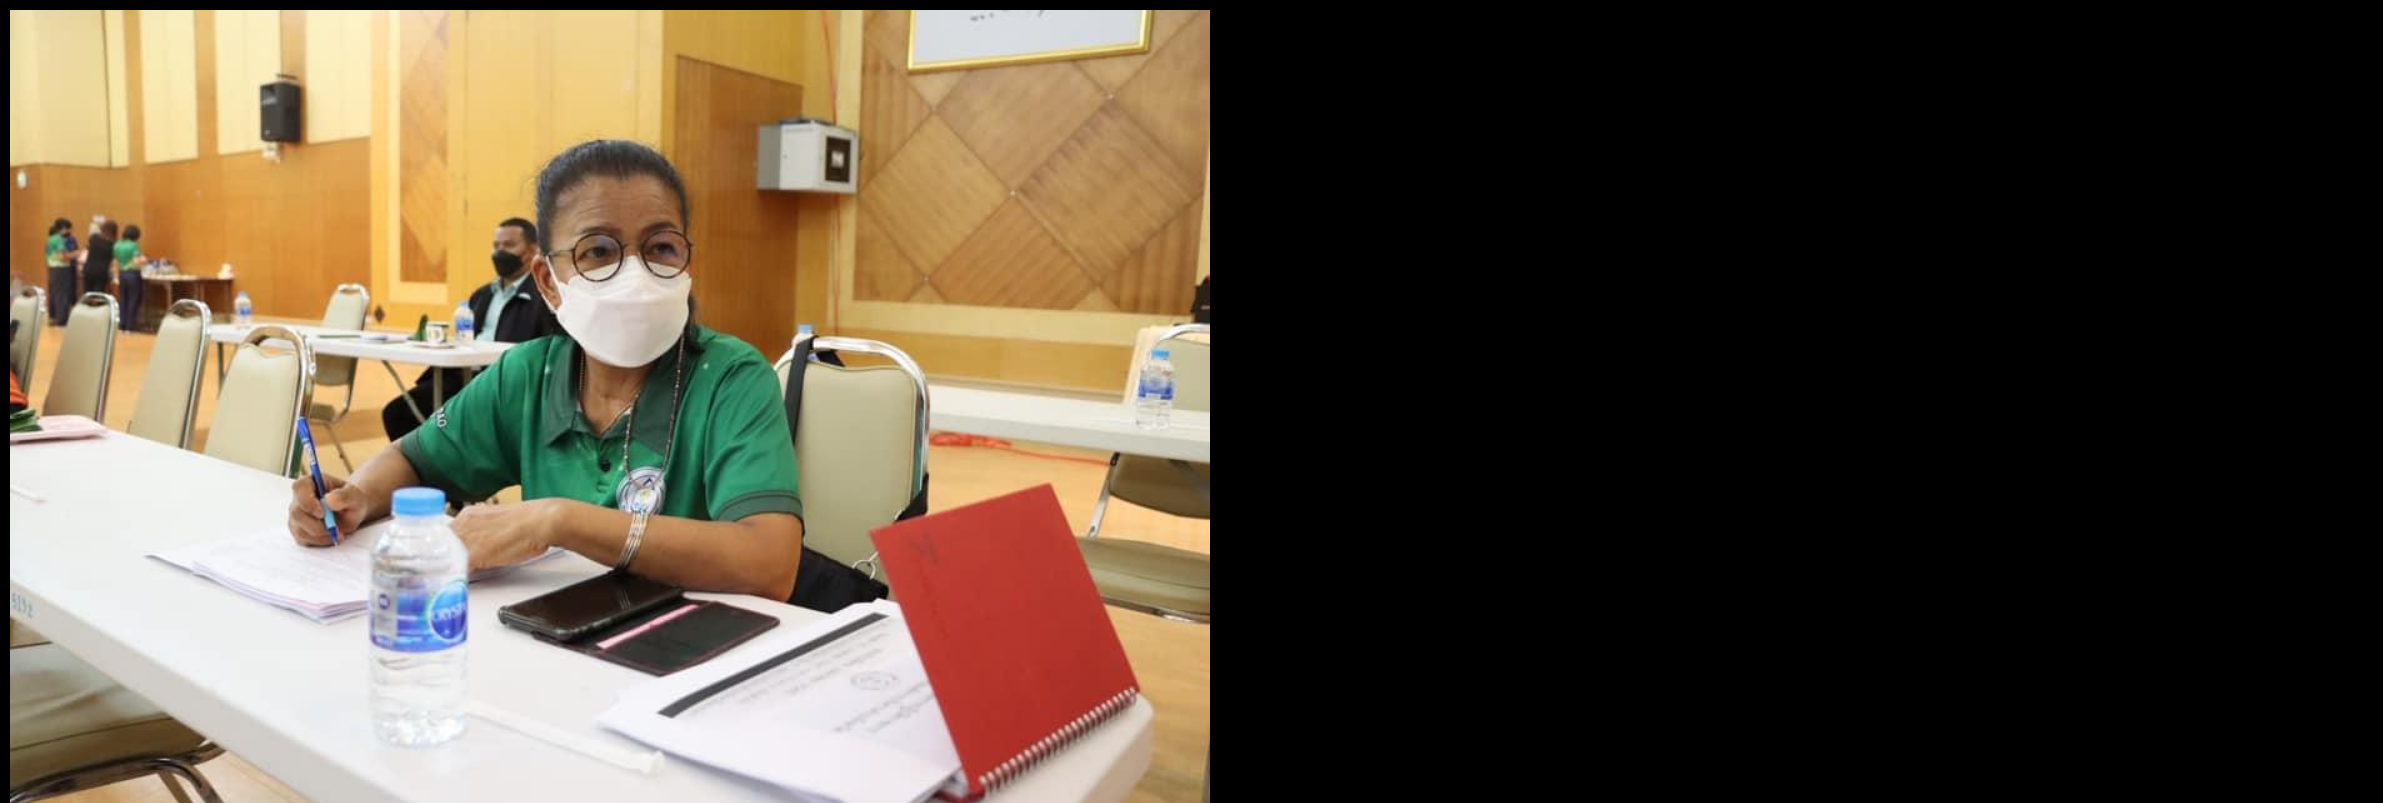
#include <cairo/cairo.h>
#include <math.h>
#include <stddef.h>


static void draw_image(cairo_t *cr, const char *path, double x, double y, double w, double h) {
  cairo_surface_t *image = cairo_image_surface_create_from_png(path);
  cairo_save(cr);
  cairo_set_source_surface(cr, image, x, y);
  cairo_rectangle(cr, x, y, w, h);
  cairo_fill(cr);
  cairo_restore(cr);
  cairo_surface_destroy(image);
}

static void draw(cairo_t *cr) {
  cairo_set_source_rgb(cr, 0, 0, 0);
  cairo_paint(cr);
  draw_image(cr, "images/1.png", 10, 10, 1200, 793);
}

int main(void) {
  cairo_surface_t *surface = cairo_image_surface_create(CAIRO_FORMAT_RGB24, 2383, 803);
  cairo_t *cr = cairo_create(surface);
  cairo_font_options_t *options = cairo_font_options_create();
  cairo_font_options_set_hint_metrics(options, CAIRO_HINT_METRICS_OFF);
  cairo_font_options_set_hint_style(options, CAIRO_HINT_STYLE_NONE);
  cairo_set_font_options(cr, options);
  cairo_set_miter_limit(cr, 4);
  draw(cr);
  cairo_surface_write_to_png(surface, "out.png");
  cairo_font_options_destroy(options);
  cairo_destroy(cr);
  cairo_surface_destroy(surface);
  return 0;
}
